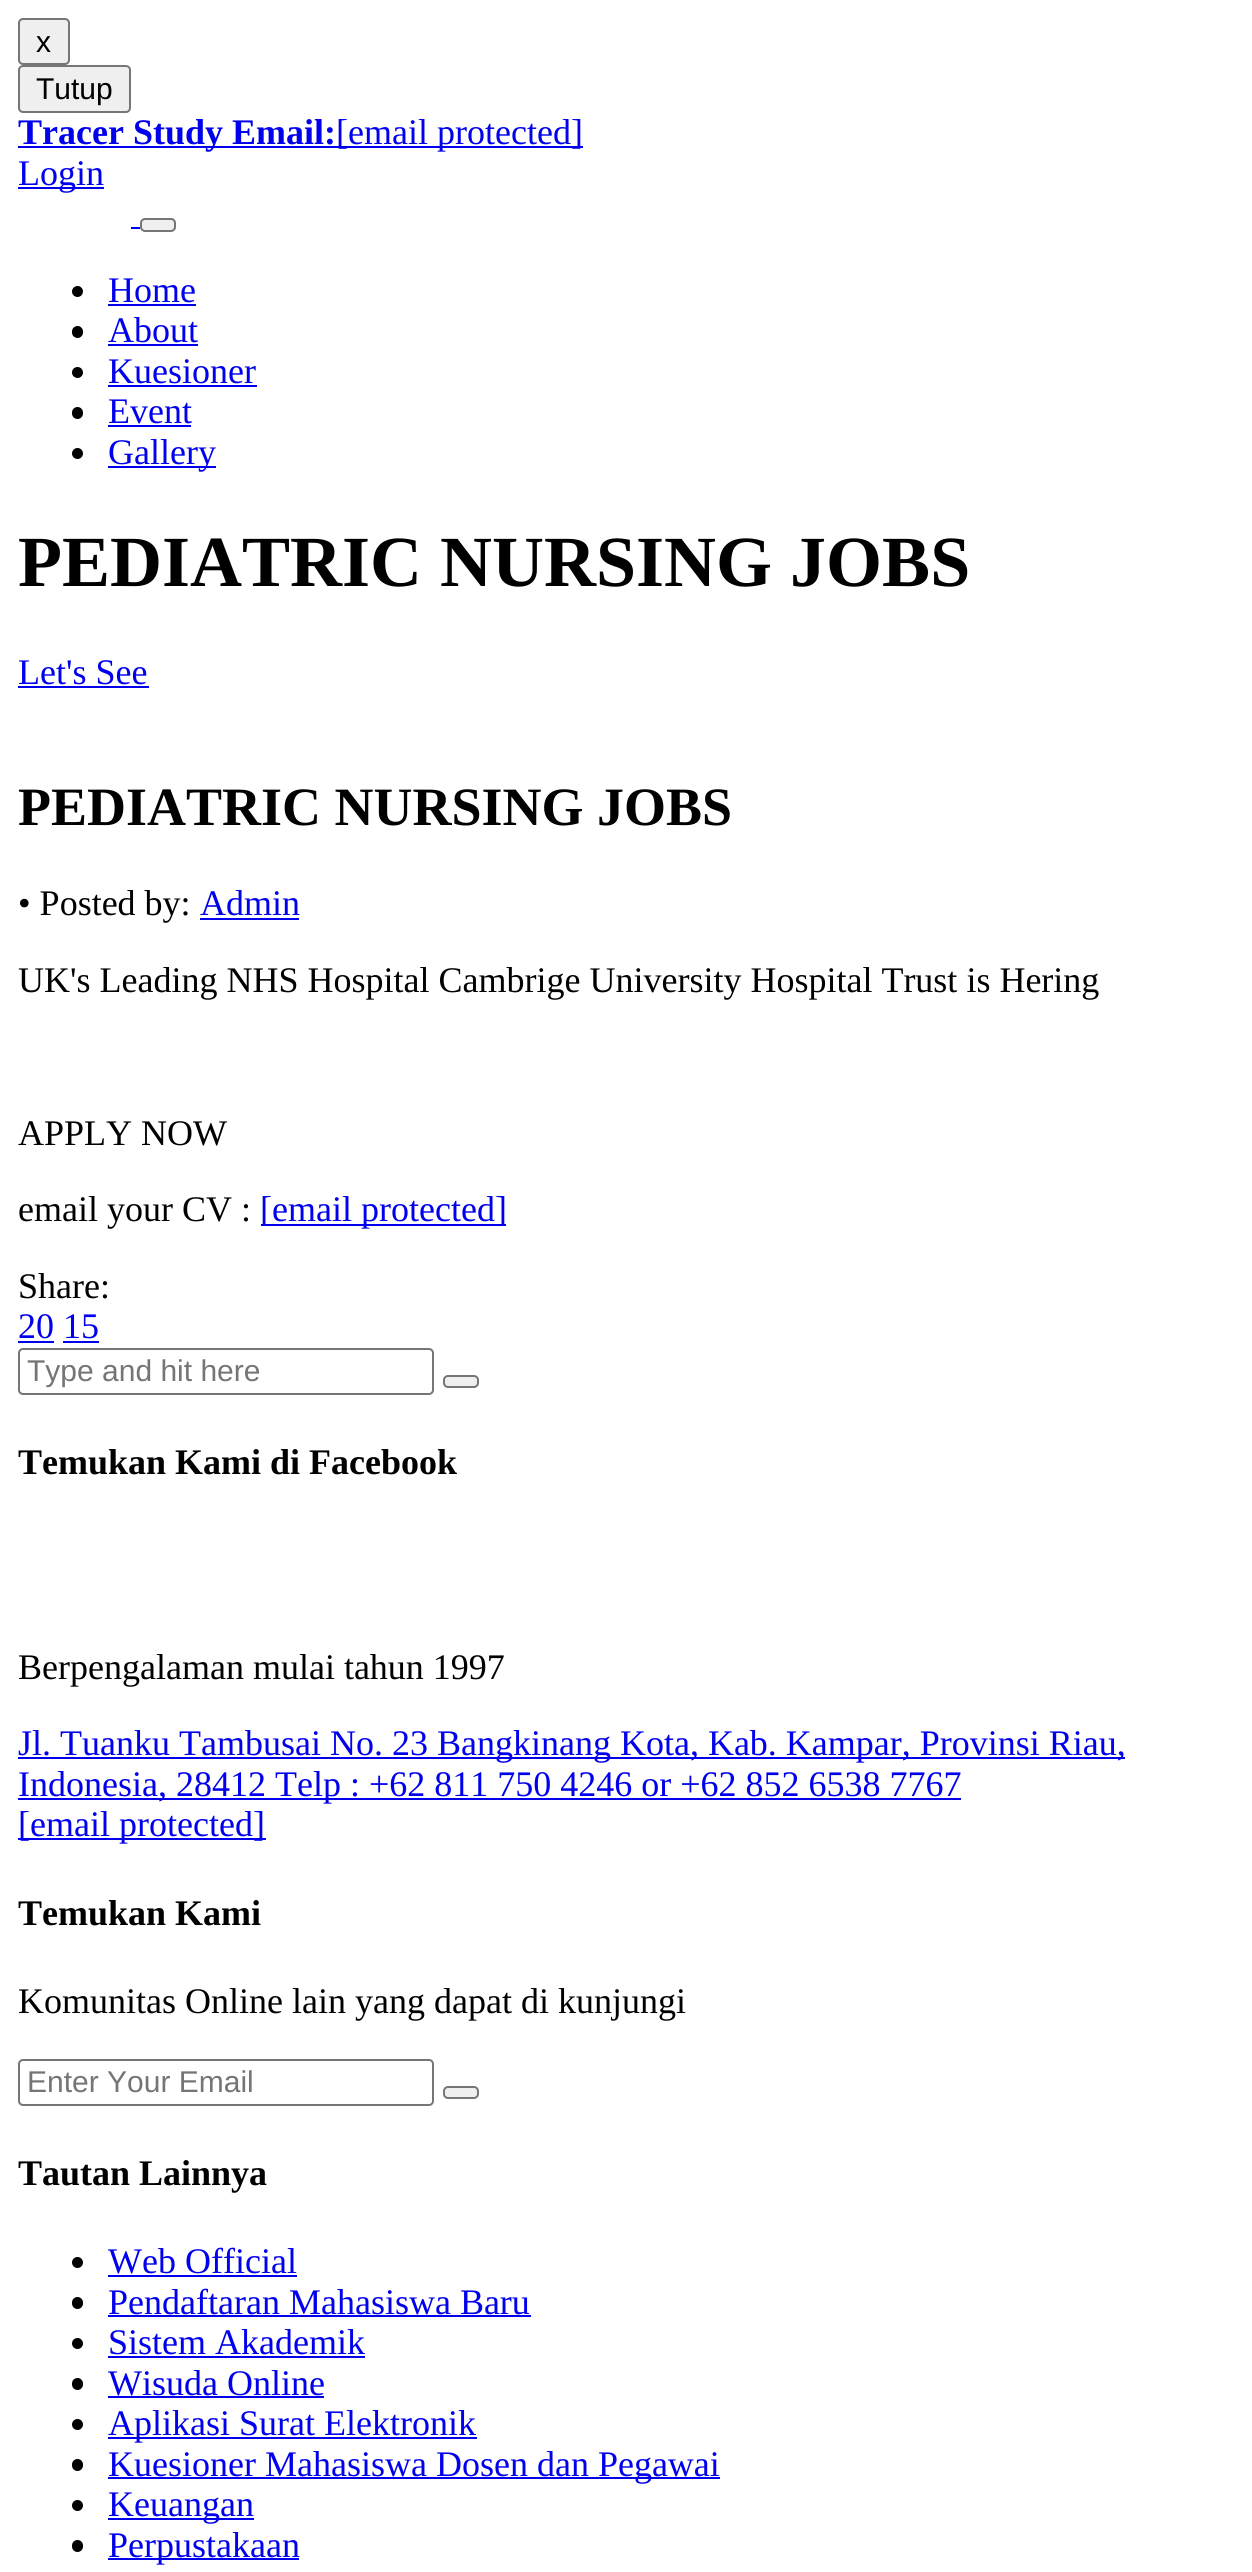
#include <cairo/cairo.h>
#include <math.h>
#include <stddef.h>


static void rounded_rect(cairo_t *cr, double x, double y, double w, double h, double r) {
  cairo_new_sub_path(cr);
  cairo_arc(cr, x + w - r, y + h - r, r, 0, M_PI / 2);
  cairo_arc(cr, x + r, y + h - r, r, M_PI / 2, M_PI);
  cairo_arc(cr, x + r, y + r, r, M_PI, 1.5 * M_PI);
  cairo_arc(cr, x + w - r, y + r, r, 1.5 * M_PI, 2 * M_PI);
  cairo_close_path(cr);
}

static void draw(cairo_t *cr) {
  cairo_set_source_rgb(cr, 1, 1, 1);
  cairo_paint(cr);
  cairo_set_source_rgb(cr, 239 / 255.0, 239 / 255.0, 239 / 255.0);
  rounded_rect(cr, 19, 19, 50, 45, 4);
  cairo_fill_preserve(cr);
  cairo_set_source_rgb(cr, 118 / 255.0, 118 / 255.0, 118 / 255.0);
  cairo_stroke(cr);
  cairo_set_source_rgb(cr, 239 / 255.0, 239 / 255.0, 239 / 255.0);
  rounded_rect(cr, 19, 66, 111, 46, 4);
  cairo_fill_preserve(cr);
  cairo_set_source_rgb(cr, 118 / 255.0, 118 / 255.0, 118 / 255.0);
  cairo_stroke(cr);
  cairo_set_source_rgb(cr, 0, 0, 238 / 255.0);
  cairo_rectangle(cr, 18, 146, 565, 2);
  cairo_fill(cr);
  cairo_rectangle(cr, 18, 187, 86, 2);
  cairo_fill(cr);
  cairo_rectangle(cr, 131, 227, 9, 2);
  cairo_fill(cr);
  cairo_set_source_rgb(cr, 239 / 255.0, 239 / 255.0, 239 / 255.0);
  rounded_rect(cr, 141, 219, 34, 12, 4);
  cairo_fill_preserve(cr);
  cairo_set_source_rgb(cr, 118 / 255.0, 118 / 255.0, 118 / 255.0);
  cairo_stroke(cr);
  cairo_set_source_rgb(cr, 0, 0, 0);
  cairo_arc(cr, 77.5, 291.5, 5.5, 0, 2 * M_PI);
  cairo_fill(cr);
  cairo_set_source_rgb(cr, 0, 0, 238 / 255.0);
  cairo_rectangle(cr, 108, 304, 88, 2);
  cairo_fill(cr);
  cairo_set_source_rgb(cr, 0, 0, 0);
  rounded_rect(cr, 72, 326, 11, 12, 5.5);
  cairo_fill(cr);
  cairo_set_source_rgb(cr, 0, 0, 238 / 255.0);
  cairo_rectangle(cr, 108, 344, 90, 2);
  cairo_fill(cr);
  cairo_set_source_rgb(cr, 0, 0, 0);
  cairo_arc(cr, 77.5, 372.5, 5.5, 0, 2 * M_PI);
  cairo_fill(cr);
  cairo_set_source_rgb(cr, 0, 0, 238 / 255.0);
  cairo_rectangle(cr, 108, 385, 149, 2);
  cairo_fill(cr);
  cairo_set_source_rgb(cr, 0, 0, 0);
  rounded_rect(cr, 72, 407, 11, 12, 5.5);
  cairo_fill(cr);
  cairo_set_source_rgb(cr, 0, 0, 238 / 255.0);
  cairo_rectangle(cr, 108, 425, 83, 2);
  cairo_fill(cr);
  cairo_set_source_rgb(cr, 0, 0, 0);
  cairo_arc(cr, 77.5, 453.5, 5.5, 0, 2 * M_PI);
  cairo_fill(cr);
  cairo_set_source_rgb(cr, 0, 0, 238 / 255.0);
  cairo_rectangle(cr, 108, 466, 108, 2);
  cairo_fill(cr);
  cairo_rectangle(cr, 18, 686, 131, 2);
  cairo_fill(cr);
  cairo_rectangle(cr, 200, 918, 99, 2);
  cairo_fill(cr);
  cairo_rectangle(cr, 261, 1224, 245, 2);
  cairo_fill(cr);
  cairo_rectangle(cr, 18, 1341, 36, 2);
  cairo_fill(cr);
  cairo_rectangle(cr, 63, 1341, 36, 2);
  cairo_fill(cr);
  rounded_rect(cr, 19, 1349, 414, 45, 4);
  cairo_set_source_rgb(cr, 118 / 255.0, 118 / 255.0, 118 / 255.0);
  cairo_stroke(cr);
  cairo_set_source_rgb(cr, 239 / 255.0, 239 / 255.0, 239 / 255.0);
  rounded_rect(cr, 444, 1376, 34, 11, 4);
  cairo_fill_preserve(cr);
  cairo_set_source_rgb(cr, 118 / 255.0, 118 / 255.0, 118 / 255.0);
  cairo_stroke(cr);
  cairo_set_source_rgb(cr, 0, 0, 238 / 255.0);
  cairo_rectangle(cr, 18, 1757, 1107, 2);
  cairo_fill(cr);
  cairo_rectangle(cr, 18, 1798, 943, 2);
  cairo_fill(cr);
  cairo_rectangle(cr, 18, 1838, 248, 2);
  cairo_fill(cr);
  rounded_rect(cr, 19, 2060, 414, 45, 4);
  cairo_set_source_rgb(cr, 118 / 255.0, 118 / 255.0, 118 / 255.0);
  cairo_stroke(cr);
  cairo_set_source_rgb(cr, 239 / 255.0, 239 / 255.0, 239 / 255.0);
  rounded_rect(cr, 444, 2087, 34, 11, 4);
  cairo_fill_preserve(cr);
  cairo_set_source_rgb(cr, 118 / 255.0, 118 / 255.0, 118 / 255.0);
  cairo_stroke(cr);
  cairo_set_source_rgb(cr, 0, 0, 0);
  cairo_arc(cr, 77.5, 2262.5, 5.5, 0, 2 * M_PI);
  cairo_fill(cr);
  cairo_set_source_rgb(cr, 0, 0, 238 / 255.0);
  cairo_rectangle(cr, 108, 2275, 189, 2);
  cairo_fill(cr);
  cairo_set_source_rgb(cr, 0, 0, 0);
  rounded_rect(cr, 72, 2297, 11, 12, 5.5);
  cairo_fill(cr);
  cairo_set_source_rgb(cr, 0, 0, 238 / 255.0);
  cairo_rectangle(cr, 108, 2315, 423, 2);
  cairo_fill(cr);
  cairo_set_source_rgb(cr, 0, 0, 0);
  cairo_arc(cr, 77.5, 2343.5, 5.5, 0, 2 * M_PI);
  cairo_fill(cr);
  cairo_set_source_rgb(cr, 0, 0, 238 / 255.0);
  cairo_rectangle(cr, 108, 2356, 257, 2);
  cairo_fill(cr);
  cairo_set_source_rgb(cr, 0, 0, 0);
  rounded_rect(cr, 72, 2378, 11, 12, 5.5);
  cairo_fill(cr);
  cairo_set_source_rgb(cr, 0, 0, 238 / 255.0);
  cairo_rectangle(cr, 108, 2396, 216, 2);
  cairo_fill(cr);
  cairo_set_source_rgb(cr, 0, 0, 0);
  cairo_arc(cr, 77.5, 2424.5, 5.5, 0, 2 * M_PI);
  cairo_fill(cr);
  cairo_set_source_rgb(cr, 0, 0, 238 / 255.0);
  cairo_rectangle(cr, 108, 2437, 369, 2);
  cairo_fill(cr);
  cairo_set_source_rgb(cr, 0, 0, 0);
  rounded_rect(cr, 72, 2459, 11, 12, 5.5);
  cairo_fill(cr);
  cairo_set_source_rgb(cr, 0, 0, 238 / 255.0);
  cairo_rectangle(cr, 108, 2477, 612, 2);
  cairo_fill(cr);
  cairo_set_source_rgb(cr, 0, 0, 0);
  cairo_arc(cr, 77.5, 2505.5, 5.5, 0, 2 * M_PI);
  cairo_fill(cr);
  cairo_set_source_rgb(cr, 0, 0, 238 / 255.0);
  cairo_rectangle(cr, 108, 2518, 146, 2);
  cairo_fill(cr);
  cairo_set_source_rgb(cr, 0, 0, 0);
  rounded_rect(cr, 72, 2540, 11, 12, 5.5);
  cairo_fill(cr);
  cairo_set_source_rgb(cr, 0, 0, 238 / 255.0);
  cairo_rectangle(cr, 108, 2558, 191, 2);
  cairo_fill(cr);
  cairo_select_font_face(cr, "Liberation Sans", CAIRO_FONT_SLANT_NORMAL, CAIRO_FONT_WEIGHT_NORMAL);
  cairo_set_font_size(cr, 30);
  cairo_set_source_rgb(cr, 0, 0, 0);
  cairo_move_to(cr, 36, 52);
  cairo_show_text(cr, "x");
  cairo_move_to(cr, 36, 99);
  cairo_show_text(cr, "Tutup");
  cairo_select_font_face(cr, "Liberation Serif", CAIRO_FONT_SLANT_NORMAL, CAIRO_FONT_WEIGHT_BOLD);
  cairo_set_font_size(cr, 36);
  cairo_set_source_rgb(cr, 0, 0, 238 / 255.0);
  cairo_move_to(cr, 18, 144);
  cairo_show_text(cr, "Tracer Study Email:");
  cairo_select_font_face(cr, "Liberation Serif", CAIRO_FONT_SLANT_NORMAL, CAIRO_FONT_WEIGHT_NORMAL);
  cairo_move_to(cr, 336, 144);
  cairo_show_text(cr, "[email protected]");
  cairo_move_to(cr, 18, 185);
  cairo_show_text(cr, "Login");
  cairo_move_to(cr, 108, 302);
  cairo_show_text(cr, "Home");
  cairo_move_to(cr, 108, 342);
  cairo_show_text(cr, "About");
  cairo_move_to(cr, 108, 383);
  cairo_show_text(cr, "Kuesioner");
  cairo_move_to(cr, 108, 423);
  cairo_show_text(cr, "Event");
  cairo_move_to(cr, 108, 464);
  cairo_show_text(cr, "Gallery");
  cairo_select_font_face(cr, "Liberation Serif", CAIRO_FONT_SLANT_NORMAL, CAIRO_FONT_WEIGHT_BOLD);
  cairo_set_font_size(cr, 72);
  cairo_set_source_rgb(cr, 0, 0, 0);
  cairo_move_to(cr, 18, 586);
  cairo_show_text(cr, "PEDIATRIC NURSING JOBS");
  cairo_select_font_face(cr, "Liberation Serif", CAIRO_FONT_SLANT_NORMAL, CAIRO_FONT_WEIGHT_NORMAL);
  cairo_set_font_size(cr, 36);
  cairo_set_source_rgb(cr, 0, 0, 238 / 255.0);
  cairo_move_to(cr, 18, 684);
  cairo_show_text(cr, "Let's See");
  cairo_select_font_face(cr, "Liberation Serif", CAIRO_FONT_SLANT_NORMAL, CAIRO_FONT_WEIGHT_BOLD);
  cairo_set_font_size(cr, 54);
  cairo_set_source_rgb(cr, 0, 0, 0);
  cairo_move_to(cr, 18, 825);
  cairo_show_text(cr, "PEDIATRIC NURSING JOBS");
  cairo_select_font_face(cr, "Liberation Serif", CAIRO_FONT_SLANT_NORMAL, CAIRO_FONT_WEIGHT_NORMAL);
  cairo_set_font_size(cr, 36);
  cairo_move_to(cr, 18, 915);
  cairo_show_text(cr, "• Posted by:");
  cairo_set_source_rgb(cr, 0, 0, 238 / 255.0);
  cairo_move_to(cr, 200, 915);
  cairo_show_text(cr, "Admin");
  cairo_set_source_rgb(cr, 0, 0, 0);
  cairo_move_to(cr, 18, 992);
  cairo_show_text(cr, "UK's Leading NHS Hospital Cambrige University Hospital Trust is Hering");
  cairo_move_to(cr, 18, 1145);
  cairo_show_text(cr, "APPLY NOW");
  cairo_move_to(cr, 18, 1221);
  cairo_show_text(cr, "email your CV :");
  cairo_set_source_rgb(cr, 0, 0, 238 / 255.0);
  cairo_move_to(cr, 260, 1221);
  cairo_show_text(cr, "[email protected]");
  cairo_set_source_rgb(cr, 0, 0, 0);
  cairo_move_to(cr, 18, 1298);
  cairo_show_text(cr, "Share:");
  cairo_set_source_rgb(cr, 0, 0, 238 / 255.0);
  cairo_move_to(cr, 18, 1338);
  cairo_show_text(cr, "20 15");
  cairo_select_font_face(cr, "Liberation Sans", CAIRO_FONT_SLANT_NORMAL, CAIRO_FONT_WEIGHT_NORMAL);
  cairo_set_font_size(cr, 30);
  cairo_set_source_rgb(cr, 117 / 255.0, 117 / 255.0, 117 / 255.0);
  cairo_move_to(cr, 27, 1381);
  cairo_show_text(cr, "Type and hit here");
  cairo_select_font_face(cr, "Liberation Serif", CAIRO_FONT_SLANT_NORMAL, CAIRO_FONT_WEIGHT_BOLD);
  cairo_set_font_size(cr, 36);
  cairo_set_source_rgb(cr, 0, 0, 0);
  cairo_move_to(cr, 18, 1474);
  cairo_show_text(cr, "Temukan Kami di Facebook");
  cairo_select_font_face(cr, "Liberation Serif", CAIRO_FONT_SLANT_NORMAL, CAIRO_FONT_WEIGHT_NORMAL);
  cairo_move_to(cr, 18, 1679);
  cairo_show_text(cr, "Berpengalaman mulai tahun 1997");
  cairo_set_source_rgb(cr, 0, 0, 238 / 255.0);
  cairo_move_to(cr, 18, 1755);
  cairo_show_text(cr, "Jl. Tuanku Tambusai No. 23 Bangkinang Kota, Kab. Kampar, Provinsi Riau,");
  cairo_move_to(cr, 18, 1796);
  cairo_show_text(cr, "Indonesia, 28412 Telp : +62 811 750 4246 or +62 852 6538 7767");
  cairo_move_to(cr, 18, 1836);
  cairo_show_text(cr, "[email protected]");
  cairo_select_font_face(cr, "Liberation Serif", CAIRO_FONT_SLANT_NORMAL, CAIRO_FONT_WEIGHT_BOLD);
  cairo_set_source_rgb(cr, 0, 0, 0);
  cairo_move_to(cr, 18, 1925);
  cairo_show_text(cr, "Temukan Kami");
  cairo_select_font_face(cr, "Liberation Serif", CAIRO_FONT_SLANT_NORMAL, CAIRO_FONT_WEIGHT_NORMAL);
  cairo_move_to(cr, 18, 2013);
  cairo_show_text(cr, "Komunitas Online lain yang dapat di kunjungi");
  cairo_select_font_face(cr, "Liberation Sans", CAIRO_FONT_SLANT_NORMAL, CAIRO_FONT_WEIGHT_NORMAL);
  cairo_set_font_size(cr, 30);
  cairo_set_source_rgb(cr, 117 / 255.0, 117 / 255.0, 117 / 255.0);
  cairo_move_to(cr, 27, 2092);
  cairo_show_text(cr, "Enter Your Email");
  cairo_select_font_face(cr, "Liberation Serif", CAIRO_FONT_SLANT_NORMAL, CAIRO_FONT_WEIGHT_BOLD);
  cairo_set_font_size(cr, 36);
  cairo_set_source_rgb(cr, 0, 0, 0);
  cairo_move_to(cr, 18, 2185);
  cairo_show_text(cr, "Tautan Lainnya");
  cairo_select_font_face(cr, "Liberation Serif", CAIRO_FONT_SLANT_NORMAL, CAIRO_FONT_WEIGHT_NORMAL);
  cairo_set_source_rgb(cr, 0, 0, 238 / 255.0);
  cairo_move_to(cr, 108, 2273);
  cairo_show_text(cr, "Web Official");
  cairo_move_to(cr, 108, 2314);
  cairo_show_text(cr, "Pendaftaran Mahasiswa Baru");
  cairo_move_to(cr, 108, 2354);
  cairo_show_text(cr, "Sistem Akademik");
  cairo_move_to(cr, 108, 2395);
  cairo_show_text(cr, "Wisuda Online");
  cairo_move_to(cr, 108, 2435);
  cairo_show_text(cr, "Aplikasi Surat Elektronik");
  cairo_move_to(cr, 108, 2476);
  cairo_show_text(cr, "Kuesioner Mahasiswa Dosen dan Pegawai");
  cairo_move_to(cr, 108, 2516);
  cairo_show_text(cr, "Keuangan");
  cairo_move_to(cr, 108, 2557);
  cairo_show_text(cr, "Perpustakaan");
}

int main(void) {
  cairo_surface_t *surface = cairo_image_surface_create(CAIRO_FORMAT_RGB24, 1252, 2572);
  cairo_t *cr = cairo_create(surface);
  cairo_font_options_t *options = cairo_font_options_create();
  cairo_font_options_set_hint_metrics(options, CAIRO_HINT_METRICS_OFF);
  cairo_font_options_set_hint_style(options, CAIRO_HINT_STYLE_NONE);
  cairo_set_font_options(cr, options);
  cairo_set_miter_limit(cr, 4);
  draw(cr);
  cairo_surface_write_to_png(surface, "out.png");
  cairo_font_options_destroy(options);
  cairo_destroy(cr);
  cairo_surface_destroy(surface);
  return 0;
}
